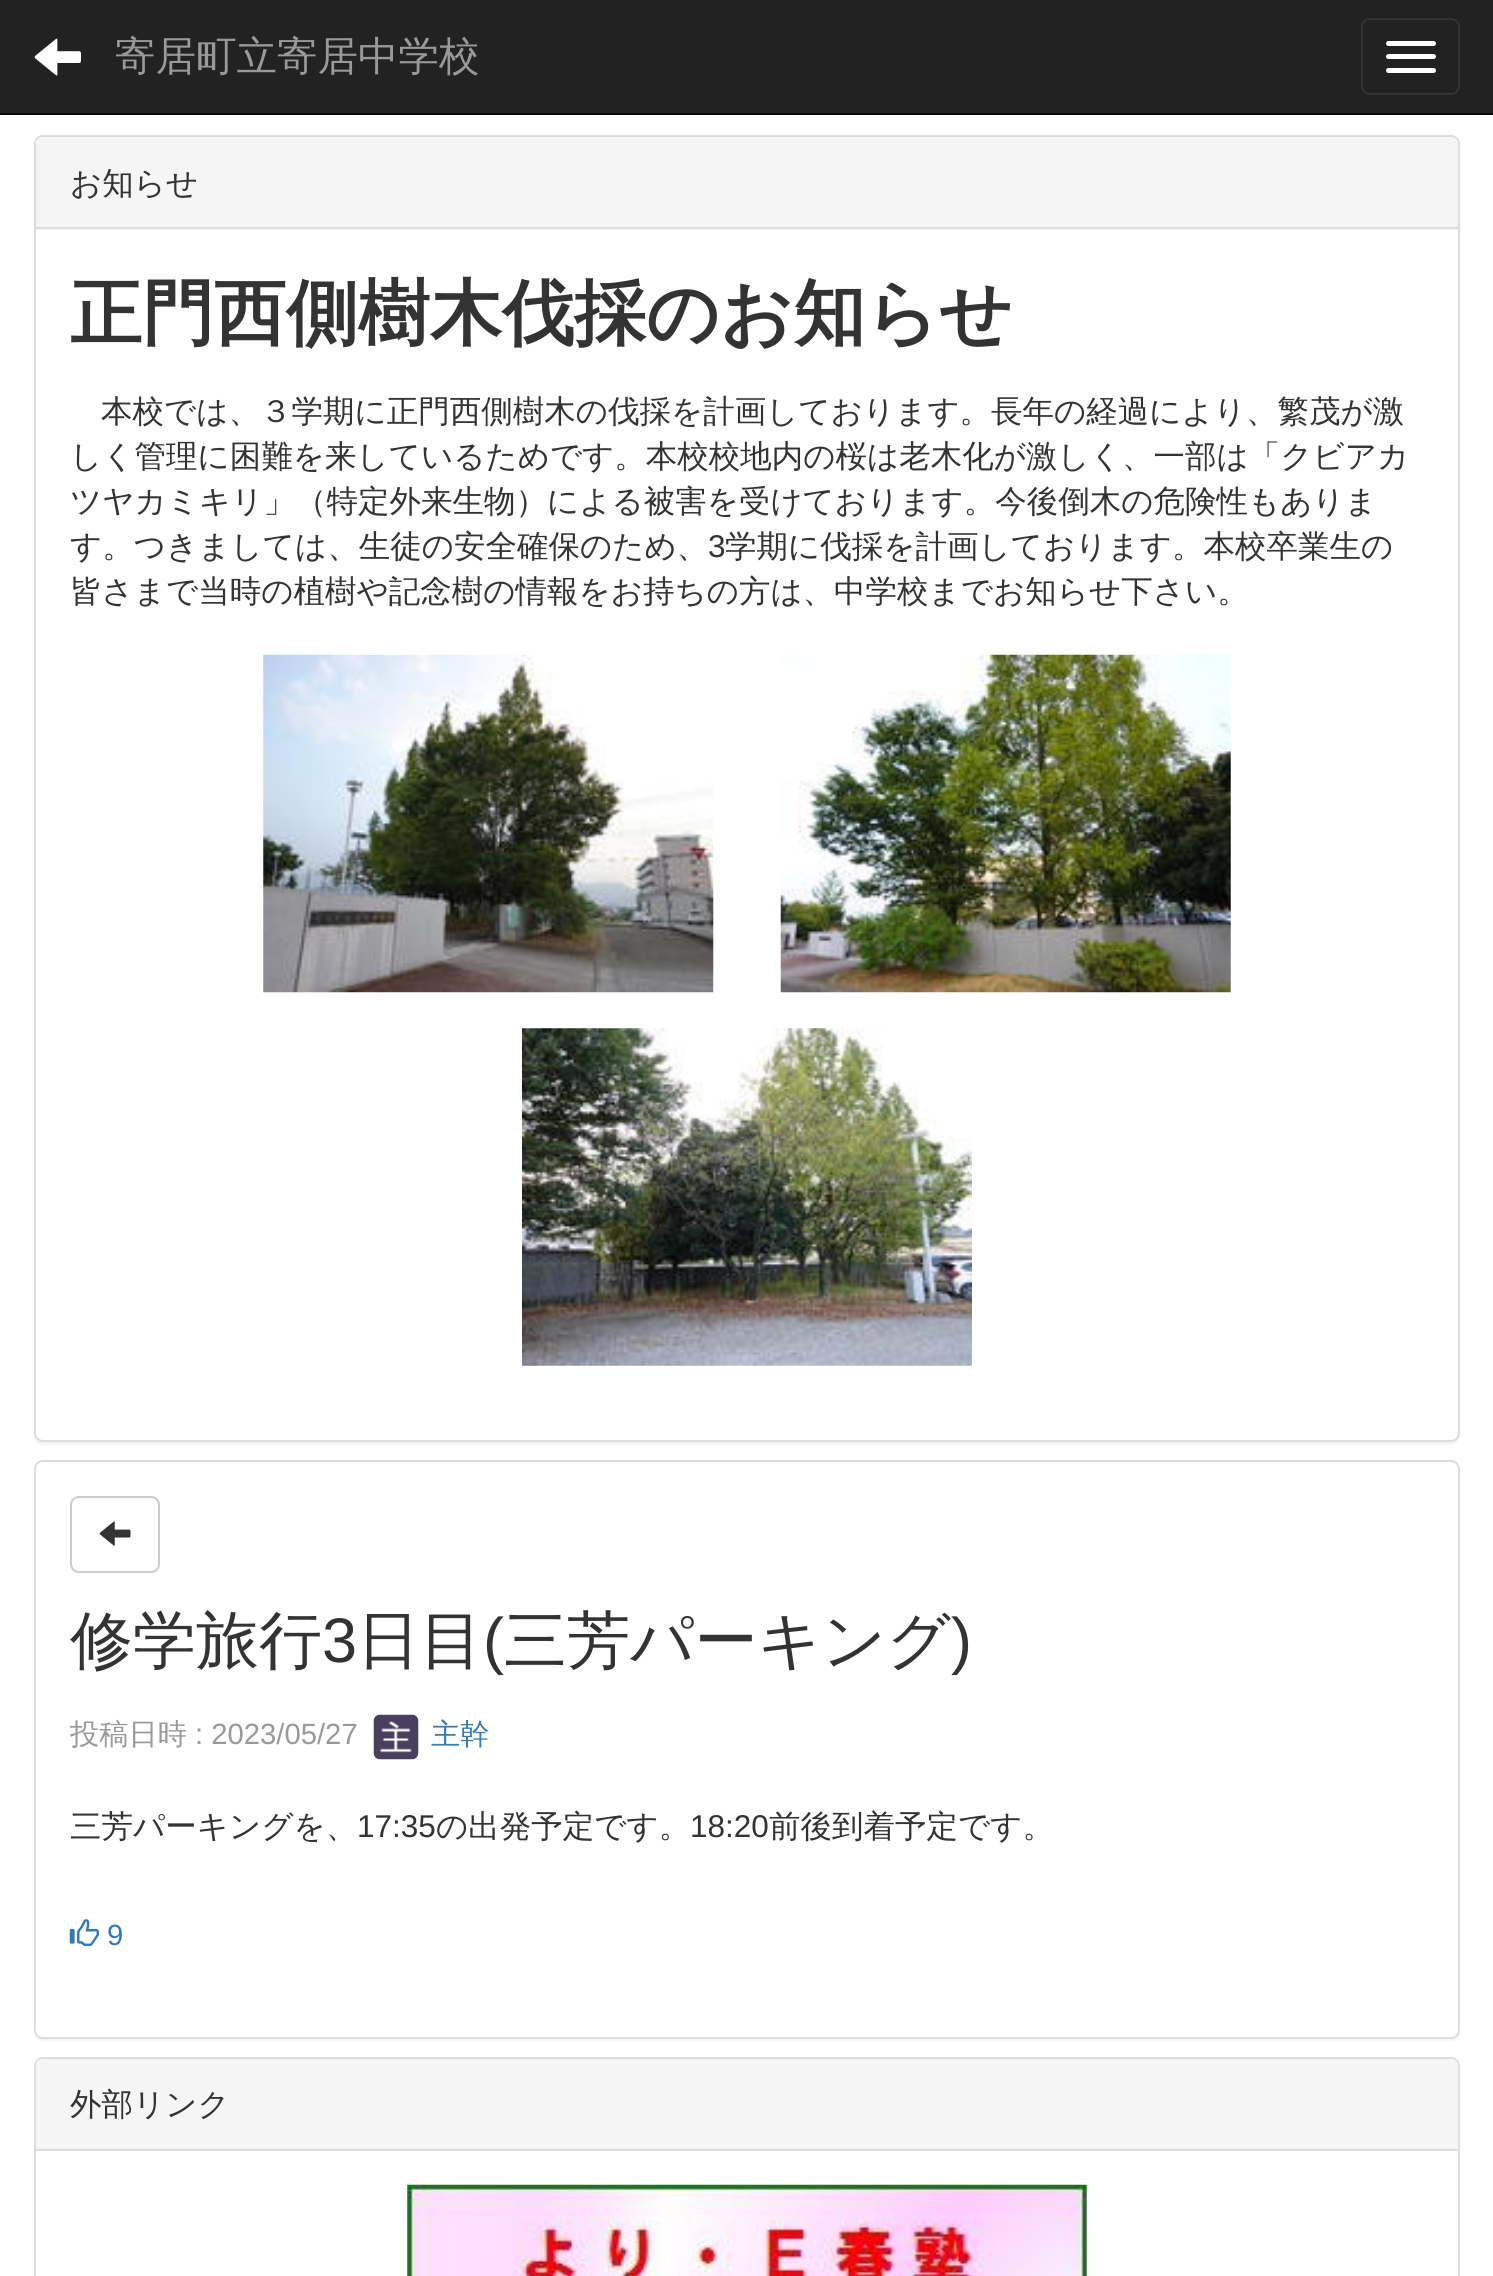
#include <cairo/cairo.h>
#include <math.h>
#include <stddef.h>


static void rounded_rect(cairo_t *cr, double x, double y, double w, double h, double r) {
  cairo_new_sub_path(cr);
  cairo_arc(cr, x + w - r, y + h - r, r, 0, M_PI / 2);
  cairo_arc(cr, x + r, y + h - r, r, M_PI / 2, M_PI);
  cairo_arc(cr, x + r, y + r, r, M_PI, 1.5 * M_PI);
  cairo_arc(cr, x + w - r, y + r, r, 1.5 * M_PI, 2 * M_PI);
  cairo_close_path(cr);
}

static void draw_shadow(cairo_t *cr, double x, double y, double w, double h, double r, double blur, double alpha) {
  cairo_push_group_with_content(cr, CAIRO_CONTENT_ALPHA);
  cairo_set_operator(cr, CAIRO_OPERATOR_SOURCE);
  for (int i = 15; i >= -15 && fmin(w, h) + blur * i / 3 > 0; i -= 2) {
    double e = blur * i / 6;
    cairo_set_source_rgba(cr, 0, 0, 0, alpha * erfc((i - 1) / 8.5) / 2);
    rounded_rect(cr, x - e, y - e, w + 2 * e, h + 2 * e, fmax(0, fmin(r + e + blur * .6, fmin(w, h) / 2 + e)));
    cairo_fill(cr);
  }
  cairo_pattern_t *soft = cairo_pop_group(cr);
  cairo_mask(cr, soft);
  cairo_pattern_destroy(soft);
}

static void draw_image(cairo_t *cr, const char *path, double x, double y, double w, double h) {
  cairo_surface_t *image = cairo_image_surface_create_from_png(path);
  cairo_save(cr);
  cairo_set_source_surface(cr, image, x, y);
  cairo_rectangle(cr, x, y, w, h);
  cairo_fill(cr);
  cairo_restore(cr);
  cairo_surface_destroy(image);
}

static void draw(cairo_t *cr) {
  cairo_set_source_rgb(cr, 1, 1, 1);
  cairo_paint(cr);
  cairo_set_source_rgb(cr, 34 / 255.0, 34 / 255.0, 34 / 255.0);
  cairo_rectangle(cr, 0, 0, 1493, 113);
  cairo_fill(cr);
  cairo_set_source_rgb(cr, 8 / 255.0, 8 / 255.0, 8 / 255.0);
  cairo_rectangle(cr, 0, 113, 1493, 2);
  cairo_fill(cr);
  draw_image(cr, "images/1.png", 34, 38, 47, 38);
  rounded_rect(cr, 1362, 19, 97, 75, 8);
  cairo_set_source_rgb(cr, 51 / 255.0, 51 / 255.0, 51 / 255.0);
  cairo_stroke(cr);
  cairo_set_source_rgb(cr, 1, 1, 1);
  rounded_rect(cr, 1386, 41, 50, 5, 2.5);
  cairo_fill(cr);
  rounded_rect(cr, 1386, 54, 50, 5, 2.5);
  cairo_fill(cr);
  rounded_rect(cr, 1386, 68, 50, 5, 2.5);
  cairo_fill(cr);
  cairo_save(cr);
  cairo_set_fill_rule(cr, CAIRO_FILL_RULE_EVEN_ODD);
  cairo_new_path(cr);
  cairo_move_to(cr, 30, 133);
  cairo_line_to(cr, 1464, 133);
  cairo_line_to(cr, 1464, 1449);
  cairo_line_to(cr, 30, 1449);
  cairo_close_path(cr);
  cairo_move_to(cr, 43, 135);
  cairo_line_to(cr, 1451, 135);
  cairo_curve_to(cr, 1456, 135, 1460, 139, 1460, 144);
  cairo_line_to(cr, 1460, 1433);
  cairo_curve_to(cr, 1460, 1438, 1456, 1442, 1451, 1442);
  cairo_line_to(cr, 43, 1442);
  cairo_curve_to(cr, 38, 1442, 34, 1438, 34, 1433);
  cairo_line_to(cr, 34, 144);
  cairo_curve_to(cr, 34, 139, 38, 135, 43, 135);
  cairo_close_path(cr);
  cairo_clip(cr);
  cairo_set_source_rgb(cr, 0, 0, 0);
  draw_shadow(cr, 34, 137, 1426, 1308, 9, 1, 0.05);
  cairo_restore(cr);
  rounded_rect(cr, 35, 136, 1424, 1305, 8);
  cairo_set_source_rgb(cr, 221 / 255.0, 221 / 255.0, 221 / 255.0);
  cairo_stroke(cr);
  cairo_set_source_rgb(cr, 245 / 255.0, 245 / 255.0, 245 / 255.0);
  cairo_new_path(cr);
  cairo_move_to(cr, 43, 137);
  cairo_line_to(cr, 1451, 137);
  cairo_curve_to(cr, 1455, 137, 1458, 140, 1458, 144);
  cairo_line_to(cr, 1458, 230);
  cairo_line_to(cr, 36, 230);
  cairo_line_to(cr, 36, 144);
  cairo_curve_to(cr, 36, 140, 39, 137, 43, 137);
  cairo_close_path(cr);
  cairo_fill(cr);
  cairo_set_source_rgb(cr, 221 / 255.0, 221 / 255.0, 221 / 255.0);
  cairo_rectangle(cr, 36, 227, 1422, 2);
  cairo_fill(cr);
  draw_image(cr, "images/2.png", 263, 654, 451, 339);
  draw_image(cr, "images/3.png", 780, 654, 451, 339);
  draw_image(cr, "images/4.png", 522, 1028, 450, 338);
  cairo_set_source_rgb(cr, 0, 0, 0);
  draw_shadow(cr, 34, 1463, 1426, 578, 9, 1, 0.05);
  cairo_set_source_rgb(cr, 1, 1, 1);
  rounded_rect(cr, 35, 1461, 1424, 577, 8);
  cairo_fill_preserve(cr);
  cairo_set_source_rgb(cr, 221 / 255.0, 221 / 255.0, 221 / 255.0);
  cairo_stroke(cr);
  rounded_rect(cr, 71, 1497, 88, 75, 8);
  cairo_set_source_rgb(cr, 204 / 255.0, 204 / 255.0, 204 / 255.0);
  cairo_stroke(cr);
  draw_image(cr, "images/5.png", 99, 1521, 32, 25);
  draw_image(cr, "images/6.png", 373, 1714, 46, 46);
  draw_image(cr, "images/7.png", 69, 1919, 30, 28);
  rounded_rect(cr, 35, 2058, 1424, 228, 8);
  cairo_set_source_rgb(cr, 221 / 255.0, 221 / 255.0, 221 / 255.0);
  cairo_stroke(cr);
  cairo_set_source_rgb(cr, 245 / 255.0, 245 / 255.0, 245 / 255.0);
  cairo_new_path(cr);
  cairo_move_to(cr, 43, 2059);
  cairo_line_to(cr, 1451, 2059);
  cairo_curve_to(cr, 1455, 2059, 1458, 2062, 1458, 2066);
  cairo_line_to(cr, 1458, 2151);
  cairo_line_to(cr, 36, 2151);
  cairo_line_to(cr, 36, 2066);
  cairo_curve_to(cr, 36, 2062, 39, 2059, 43, 2059);
  cairo_close_path(cr);
  cairo_fill(cr);
  cairo_set_source_rgb(cr, 221 / 255.0, 221 / 255.0, 221 / 255.0);
  cairo_rectangle(cr, 36, 2149, 1422, 2);
  cairo_fill(cr);
  draw_image(cr, "images/8.png", 407, 2184, 680, 92);
  cairo_select_font_face(cr, "WenQuanYi Zen Hei Medium", CAIRO_FONT_SLANT_NORMAL, CAIRO_FONT_WEIGHT_NORMAL);
  cairo_set_font_size(cr, 40.5);
  cairo_set_source_rgb(cr, 153 / 255.0, 153 / 255.0, 153 / 255.0);
  cairo_move_to(cr, 115, 70);
  cairo_show_text(cr, "寄居町立寄居中学校");
  cairo_set_font_size(cr, 31.5);
  cairo_set_source_rgb(cr, 51 / 255.0, 51 / 255.0, 51 / 255.0);
  cairo_move_to(cr, 70, 194);
  cairo_show_text(cr, "お知らせ");
  cairo_select_font_face(cr, "WenQuanYi Zen Hei", CAIRO_FONT_SLANT_NORMAL, CAIRO_FONT_WEIGHT_BOLD);
  cairo_set_font_size(cr, 72);
  cairo_move_to(cr, 70, 338);
  cairo_show_text(cr, "正門西側樹木伐採のお知らせ");
  cairo_select_font_face(cr, "WenQuanYi Zen Hei Medium", CAIRO_FONT_SLANT_NORMAL, CAIRO_FONT_WEIGHT_NORMAL);
  cairo_set_font_size(cr, 31.5);
  cairo_move_to(cr, 101, 422);
  cairo_show_text(cr, "本校では、３学期に正門西側樹木の伐採を計画しております。長年の経過により、繁茂が激");
  cairo_move_to(cr, 70, 467);
  cairo_show_text(cr, "しく管理に困難を来しているためです。本校校地内の桜は老木化が激しく、一部は「クビアカ");
  cairo_move_to(cr, 70, 512);
  cairo_show_text(cr, "ツヤカミキリ」（特定外来生物）による被害を受けております。今後倒木の危険性もありま");
  cairo_move_to(cr, 70, 557);
  cairo_show_text(cr, "す。つきましては、生徒の安全確保のため、");
  cairo_select_font_face(cr, "Liberation Sans", CAIRO_FONT_SLANT_NORMAL, CAIRO_FONT_WEIGHT_NORMAL);
  cairo_move_to(cr, 708, 557);
  cairo_show_text(cr, "3");
  cairo_select_font_face(cr, "WenQuanYi Zen Hei Medium", CAIRO_FONT_SLANT_NORMAL, CAIRO_FONT_WEIGHT_NORMAL);
  cairo_move_to(cr, 725, 557);
  cairo_show_text(cr, "学期に伐採を計画しております。本校卒業生の");
  cairo_move_to(cr, 70, 602);
  cairo_show_text(cr, "皆さまで当時の植樹や記念樹の情報をお持ちの方は、中学校までお知らせ下さい。");
  cairo_set_font_size(cr, 63);
  cairo_move_to(cr, 70, 1662);
  cairo_show_text(cr, "修学旅行");
  cairo_select_font_face(cr, "Liberation Sans", CAIRO_FONT_SLANT_NORMAL, CAIRO_FONT_WEIGHT_NORMAL);
  cairo_move_to(cr, 322, 1662);
  cairo_show_text(cr, "3");
  cairo_select_font_face(cr, "WenQuanYi Zen Hei Medium", CAIRO_FONT_SLANT_NORMAL, CAIRO_FONT_WEIGHT_NORMAL);
  cairo_move_to(cr, 357, 1662);
  cairo_show_text(cr, "日目");
  cairo_select_font_face(cr, "Liberation Sans", CAIRO_FONT_SLANT_NORMAL, CAIRO_FONT_WEIGHT_NORMAL);
  cairo_move_to(cr, 483, 1662);
  cairo_show_text(cr, "(");
  cairo_select_font_face(cr, "WenQuanYi Zen Hei Medium", CAIRO_FONT_SLANT_NORMAL, CAIRO_FONT_WEIGHT_NORMAL);
  cairo_move_to(cr, 504, 1662);
  cairo_show_text(cr, "三芳パーキング");
  cairo_select_font_face(cr, "Liberation Sans", CAIRO_FONT_SLANT_NORMAL, CAIRO_FONT_WEIGHT_NORMAL);
  cairo_move_to(cr, 951, 1662);
  cairo_show_text(cr, ")");
  cairo_select_font_face(cr, "WenQuanYi Zen Hei Medium", CAIRO_FONT_SLANT_NORMAL, CAIRO_FONT_WEIGHT_NORMAL);
  cairo_set_font_size(cr, 29.25);
  cairo_set_source_rgb(cr, 153 / 255.0, 153 / 255.0, 153 / 255.0);
  cairo_move_to(cr, 70, 1744);
  cairo_show_text(cr, "投稿日時");
  cairo_select_font_face(cr, "Liberation Sans", CAIRO_FONT_SLANT_NORMAL, CAIRO_FONT_WEIGHT_NORMAL);
  cairo_move_to(cr, 195, 1744);
  cairo_show_text(cr, ": 2023/05/27");
  cairo_select_font_face(cr, "WenQuanYi Zen Hei Medium", CAIRO_FONT_SLANT_NORMAL, CAIRO_FONT_WEIGHT_NORMAL);
  cairo_set_source_rgb(cr, 51 / 255.0, 122 / 255.0, 183 / 255.0);
  cairo_move_to(cr, 431, 1744);
  cairo_show_text(cr, "主幹");
  cairo_set_font_size(cr, 31.5);
  cairo_set_source_rgb(cr, 51 / 255.0, 51 / 255.0, 51 / 255.0);
  cairo_move_to(cr, 70, 1837);
  cairo_show_text(cr, "三芳パーキングを、");
  cairo_select_font_face(cr, "Liberation Sans", CAIRO_FONT_SLANT_NORMAL, CAIRO_FONT_WEIGHT_NORMAL);
  cairo_move_to(cr, 357, 1837);
  cairo_show_text(cr, "17:35");
  cairo_select_font_face(cr, "WenQuanYi Zen Hei Medium", CAIRO_FONT_SLANT_NORMAL, CAIRO_FONT_WEIGHT_NORMAL);
  cairo_move_to(cr, 436, 1837);
  cairo_show_text(cr, "の出発予定です。");
  cairo_select_font_face(cr, "Liberation Sans", CAIRO_FONT_SLANT_NORMAL, CAIRO_FONT_WEIGHT_NORMAL);
  cairo_move_to(cr, 690, 1837);
  cairo_show_text(cr, "18:20");
  cairo_select_font_face(cr, "WenQuanYi Zen Hei Medium", CAIRO_FONT_SLANT_NORMAL, CAIRO_FONT_WEIGHT_NORMAL);
  cairo_move_to(cr, 769, 1837);
  cairo_show_text(cr, "前後到着予定です。");
  cairo_select_font_face(cr, "Liberation Sans", CAIRO_FONT_SLANT_NORMAL, CAIRO_FONT_WEIGHT_NORMAL);
  cairo_set_font_size(cr, 29.25);
  cairo_set_source_rgb(cr, 51 / 255.0, 122 / 255.0, 183 / 255.0);
  cairo_move_to(cr, 107, 1945);
  cairo_show_text(cr, "9");
  cairo_select_font_face(cr, "WenQuanYi Zen Hei Medium", CAIRO_FONT_SLANT_NORMAL, CAIRO_FONT_WEIGHT_NORMAL);
  cairo_set_font_size(cr, 31.5);
  cairo_set_source_rgb(cr, 51 / 255.0, 51 / 255.0, 51 / 255.0);
  cairo_move_to(cr, 70, 2115);
  cairo_show_text(cr, "外部リンク");
}

int main(void) {
  cairo_surface_t *surface = cairo_image_surface_create(CAIRO_FORMAT_RGB24, 1493, 2276);
  cairo_t *cr = cairo_create(surface);
  cairo_font_options_t *options = cairo_font_options_create();
  cairo_font_options_set_hint_metrics(options, CAIRO_HINT_METRICS_OFF);
  cairo_font_options_set_hint_style(options, CAIRO_HINT_STYLE_NONE);
  cairo_set_font_options(cr, options);
  cairo_set_miter_limit(cr, 4);
  draw(cr);
  cairo_surface_write_to_png(surface, "out.png");
  cairo_font_options_destroy(options);
  cairo_destroy(cr);
  cairo_surface_destroy(surface);
  return 0;
}
